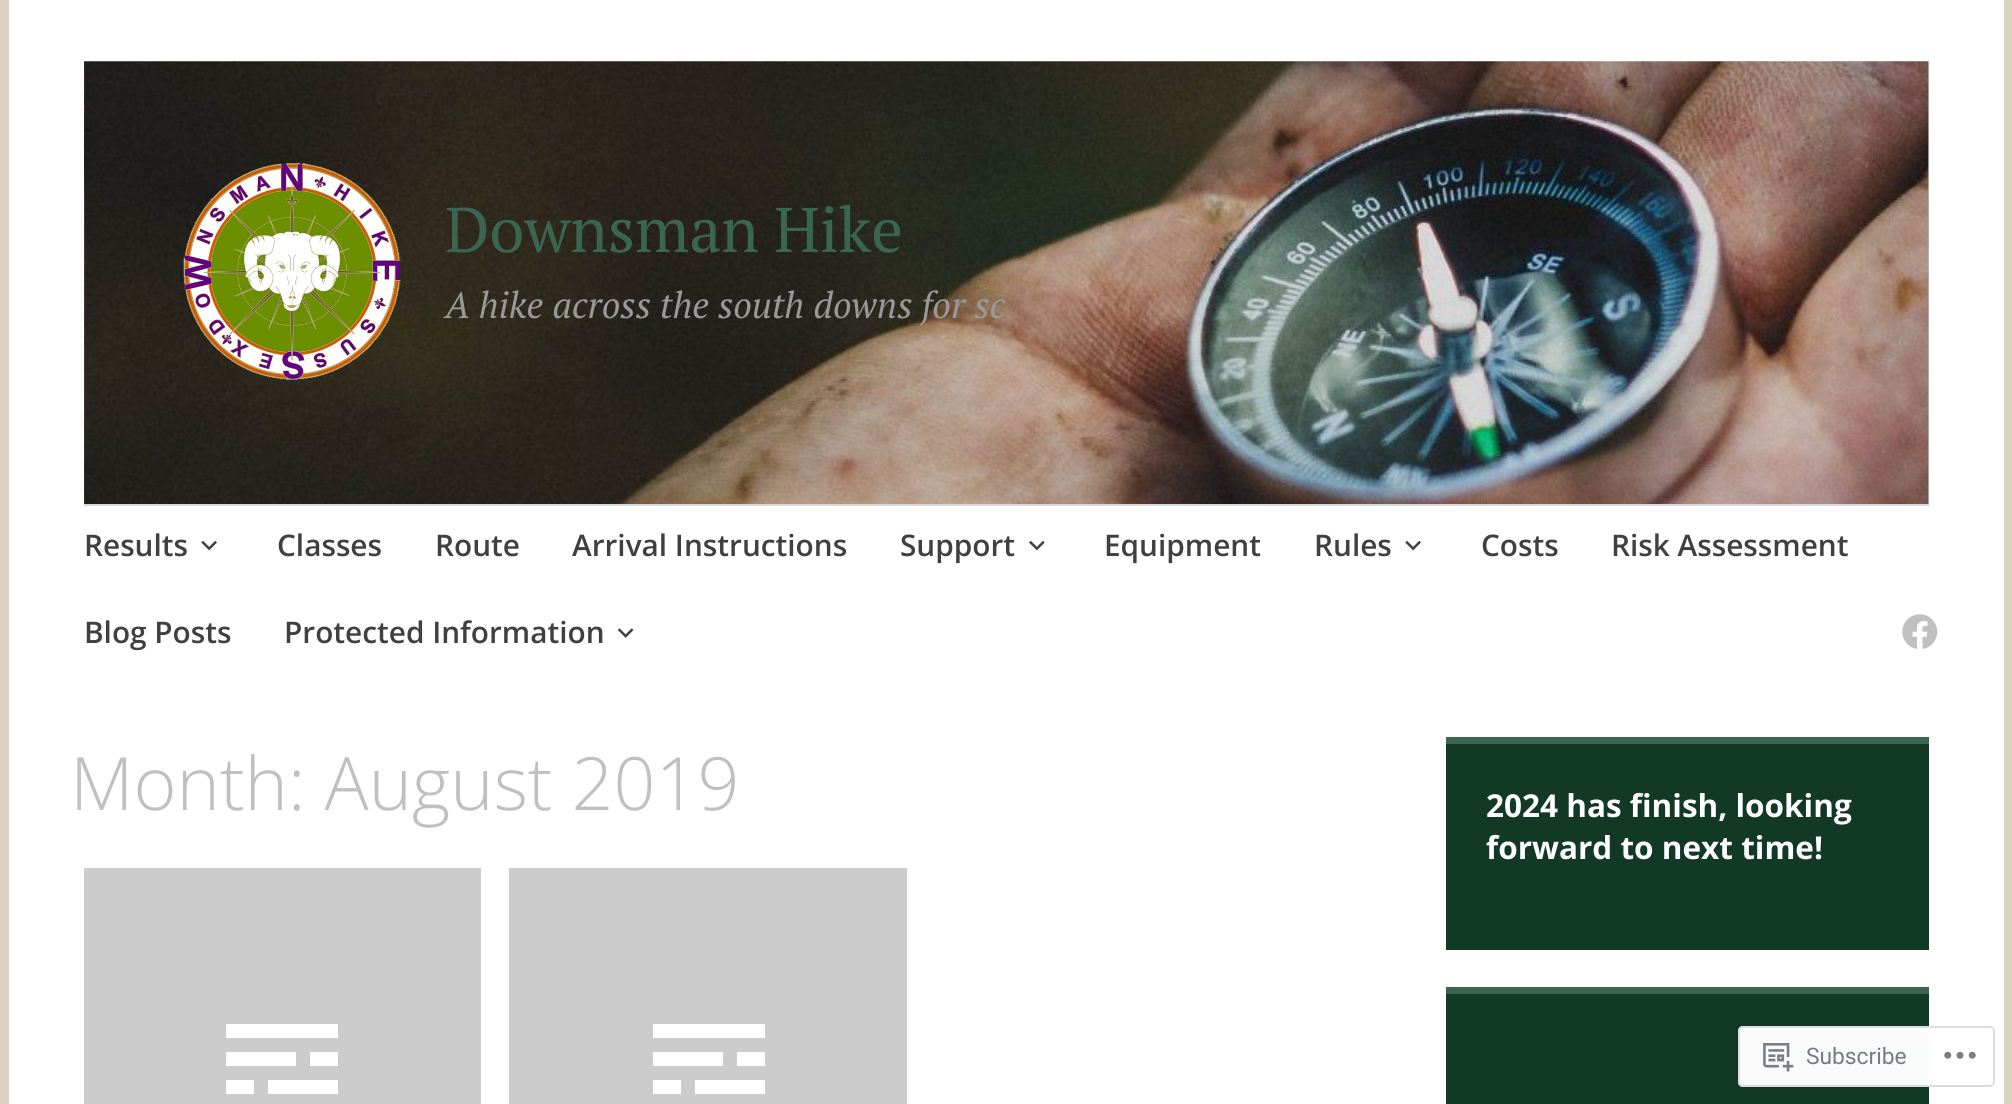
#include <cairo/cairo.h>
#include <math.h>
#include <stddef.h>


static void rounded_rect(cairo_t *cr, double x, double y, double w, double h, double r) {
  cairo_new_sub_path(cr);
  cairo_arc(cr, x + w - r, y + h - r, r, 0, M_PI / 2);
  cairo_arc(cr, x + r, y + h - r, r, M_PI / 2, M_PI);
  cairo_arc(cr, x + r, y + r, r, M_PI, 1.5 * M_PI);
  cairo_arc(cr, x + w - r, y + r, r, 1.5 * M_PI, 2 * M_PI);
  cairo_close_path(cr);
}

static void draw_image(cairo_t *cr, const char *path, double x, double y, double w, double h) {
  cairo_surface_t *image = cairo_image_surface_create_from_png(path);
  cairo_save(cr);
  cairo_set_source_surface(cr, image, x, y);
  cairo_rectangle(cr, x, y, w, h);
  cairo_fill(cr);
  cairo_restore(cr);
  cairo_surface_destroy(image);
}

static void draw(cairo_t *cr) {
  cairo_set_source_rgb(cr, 219 / 255.0, 210 / 255.0, 195 / 255.0);
  cairo_paint(cr);
  cairo_set_source_rgb(cr, 1, 1, 1);
  cairo_rectangle(cr, 9, 0, 1995, 1104);
  cairo_fill(cr);
  draw_image(cr, "images/1.png", 84, 61, 1845, 443);
  draw_image(cr, "images/2.png", 183, 163, 218, 217);
  cairo_set_source_rgb(cr, 217 / 255.0, 217 / 255.0, 217 / 255.0);
  cairo_rectangle(cr, 84, 504, 1845, 2);
  cairo_fill(cr);
  draw_image(cr, "images/3.png", 201, 540, 16, 11);
  draw_image(cr, "images/4.png", 1029, 540, 16, 11);
  draw_image(cr, "images/3.png", 1405, 540, 16, 11);
  draw_image(cr, "images/5.png", 617, 628, 17, 10);
  draw_image(cr, "images/6.png", 1902, 614, 36, 35);
  cairo_set_source_rgb(cr, 204 / 255.0, 204 / 255.0, 204 / 255.0);
  cairo_rectangle(cr, 84, 868, 397, 236);
  cairo_fill(cr);
  cairo_set_source_rgb(cr, 1, 1, 1);
  cairo_new_path(cr);
  cairo_move_to(cr, 226, 1024);
  cairo_line_to(cr, 338, 1024);
  cairo_line_to(cr, 338, 1038);
  cairo_line_to(cr, 226, 1038);
  cairo_close_path(cr);
  cairo_move_to(cr, 296, 1052);
  cairo_line_to(cr, 296, 1066);
  cairo_line_to(cr, 226, 1066);
  cairo_line_to(cr, 226, 1052);
  cairo_close_path(cr);
  cairo_move_to(cr, 310, 1066);
  cairo_line_to(cr, 310, 1052);
  cairo_line_to(cr, 338, 1052);
  cairo_line_to(cr, 338, 1066);
  cairo_close_path(cr);
  cairo_move_to(cr, 268, 1094);
  cairo_line_to(cr, 268, 1080);
  cairo_line_to(cr, 338, 1080);
  cairo_line_to(cr, 338, 1094);
  cairo_close_path(cr);
  cairo_move_to(cr, 254, 1080);
  cairo_line_to(cr, 254, 1094);
  cairo_line_to(cr, 226, 1094);
  cairo_line_to(cr, 226, 1080);
  cairo_close_path(cr);
  cairo_move_to(cr, 226, 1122);
  cairo_line_to(cr, 226, 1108);
  cairo_line_to(cr, 310, 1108);
  cairo_line_to(cr, 310, 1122);
  cairo_close_path(cr);
  cairo_fill(cr);
  cairo_set_source_rgb(cr, 204 / 255.0, 204 / 255.0, 204 / 255.0);
  cairo_rectangle(cr, 509, 868, 398, 236);
  cairo_fill(cr);
  cairo_set_source_rgb(cr, 1, 1, 1);
  cairo_new_path(cr);
  cairo_move_to(cr, 653, 1024);
  cairo_line_to(cr, 765, 1024);
  cairo_line_to(cr, 765, 1038);
  cairo_line_to(cr, 653, 1038);
  cairo_close_path(cr);
  cairo_move_to(cr, 723, 1052);
  cairo_line_to(cr, 723, 1066);
  cairo_line_to(cr, 653, 1066);
  cairo_line_to(cr, 653, 1052);
  cairo_close_path(cr);
  cairo_move_to(cr, 737, 1066);
  cairo_line_to(cr, 737, 1052);
  cairo_line_to(cr, 765, 1052);
  cairo_line_to(cr, 765, 1066);
  cairo_close_path(cr);
  cairo_move_to(cr, 695, 1094);
  cairo_line_to(cr, 695, 1080);
  cairo_line_to(cr, 765, 1080);
  cairo_line_to(cr, 765, 1094);
  cairo_close_path(cr);
  cairo_move_to(cr, 681, 1080);
  cairo_line_to(cr, 681, 1094);
  cairo_line_to(cr, 653, 1094);
  cairo_line_to(cr, 653, 1080);
  cairo_close_path(cr);
  cairo_move_to(cr, 653, 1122);
  cairo_line_to(cr, 653, 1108);
  cairo_line_to(cr, 737, 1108);
  cairo_line_to(cr, 737, 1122);
  cairo_close_path(cr);
  cairo_fill(cr);
  cairo_set_source_rgb(cr, 18 / 255.0, 57 / 255.0, 38 / 255.0);
  cairo_rectangle(cr, 1446, 744, 483, 206);
  cairo_fill(cr);
  cairo_set_source_rgb(cr, 58 / 255.0, 101 / 255.0, 81 / 255.0);
  cairo_rectangle(cr, 1446, 737, 483, 7);
  cairo_fill(cr);
  cairo_set_source_rgb(cr, 18 / 255.0, 57 / 255.0, 38 / 255.0);
  cairo_rectangle(cr, 1446, 994, 483, 110);
  cairo_fill(cr);
  cairo_set_source_rgb(cr, 58 / 255.0, 101 / 255.0, 81 / 255.0);
  cairo_rectangle(cr, 1446, 987, 483, 7);
  cairo_fill(cr);
  cairo_set_source_rgba(cr, 1, 1, 1, 0.98);
  rounded_rect(cr, 1738, 1026, 257, 61, 5);
  cairo_fill(cr);
  rounded_rect(cr, 1739, 1027, 255, 59, 4);
  cairo_set_source_rgba(cr, 220 / 255.0, 220 / 255.0, 222 / 255.0, 0.98);
  cairo_stroke(cr);
  draw_image(cr, "images/7.png", 1763, 1043, 31, 29);
  draw_image(cr, "images/8.png", 1944, 1051, 32, 8);
  cairo_select_font_face(cr, "PT Serif", CAIRO_FONT_SLANT_NORMAL, CAIRO_FONT_WEIGHT_NORMAL);
  cairo_set_font_size(cr, 63);
  cairo_set_source_rgb(cr, 58 / 255.0, 101 / 255.0, 81 / 255.0);
  cairo_move_to(cr, 445, 252);
  cairo_show_text(cr, "Downsman Hike");
  cairo_select_font_face(cr, "PT Serif", CAIRO_FONT_SLANT_ITALIC, CAIRO_FONT_WEIGHT_NORMAL);
  cairo_set_font_size(cr, 36.75);
  cairo_set_source_rgb(cr, 153 / 255.0, 153 / 255.0, 153 / 255.0);
  cairo_move_to(cr, 445, 318);
  cairo_show_text(cr, "A hike across the south downs for sc");
  cairo_select_font_face(cr, "Open Sans SemiBold", CAIRO_FONT_SLANT_NORMAL, CAIRO_FONT_WEIGHT_NORMAL);
  cairo_set_font_size(cr, 29.75);
  cairo_set_source_rgb(cr, 64 / 255.0, 64 / 255.0, 64 / 255.0);
  cairo_move_to(cr, 84, 556);
  cairo_show_text(cr, "Results");
  cairo_move_to(cr, 277, 556);
  cairo_show_text(cr, "Classes");
  cairo_move_to(cr, 435, 556);
  cairo_show_text(cr, "Route");
  cairo_move_to(cr, 572, 556);
  cairo_show_text(cr, "Arrival Instructions");
  cairo_move_to(cr, 900, 556);
  cairo_show_text(cr, "Support");
  cairo_move_to(cr, 1104, 556);
  cairo_show_text(cr, "Equipment");
  cairo_move_to(cr, 1314, 556);
  cairo_show_text(cr, "Rules");
  cairo_move_to(cr, 1481, 556);
  cairo_show_text(cr, "Costs");
  cairo_move_to(cr, 1611, 556);
  cairo_show_text(cr, "Risk Assessment");
  cairo_move_to(cr, 84, 643);
  cairo_show_text(cr, "Blog Posts");
  cairo_move_to(cr, 284, 643);
  cairo_show_text(cr, "Protected Information");
  cairo_select_font_face(cr, "Open Sans Light", CAIRO_FONT_SLANT_NORMAL, CAIRO_FONT_WEIGHT_NORMAL);
  cairo_set_font_size(cr, 73.5);
  cairo_set_source_rgb(cr, 192 / 255.0, 192 / 255.0, 192 / 255.0);
  cairo_move_to(cr, 70, 810);
  cairo_show_text(cr, "Month: August 2019");
  cairo_select_font_face(cr, "Open Sans", CAIRO_FONT_SLANT_NORMAL, CAIRO_FONT_WEIGHT_BOLD);
  cairo_set_font_size(cr, 31.5);
  cairo_set_source_rgb(cr, 1, 1, 1);
  cairo_move_to(cr, 1486, 817);
  cairo_show_text(cr, "2024 has finish, looking");
  cairo_move_to(cr, 1486, 859);
  cairo_show_text(cr, "forward to next time!");
  cairo_select_font_face(cr, "Roboto", CAIRO_FONT_SLANT_NORMAL, CAIRO_FONT_WEIGHT_NORMAL);
  cairo_set_font_size(cr, 22.75);
  cairo_set_source_rgb(cr, 118 / 255.0, 123 / 255.0, 128 / 255.0);
  cairo_move_to(cr, 1806, 1064);
  cairo_show_text(cr, "Subscribe");
}

int main(void) {
  cairo_surface_t *surface = cairo_image_surface_create(CAIRO_FORMAT_RGB24, 2012, 1104);
  cairo_t *cr = cairo_create(surface);
  cairo_font_options_t *options = cairo_font_options_create();
  cairo_font_options_set_hint_metrics(options, CAIRO_HINT_METRICS_OFF);
  cairo_font_options_set_hint_style(options, CAIRO_HINT_STYLE_NONE);
  cairo_set_font_options(cr, options);
  cairo_set_miter_limit(cr, 4);
  draw(cr);
  cairo_surface_write_to_png(surface, "out.png");
  cairo_font_options_destroy(options);
  cairo_destroy(cr);
  cairo_surface_destroy(surface);
  return 0;
}
